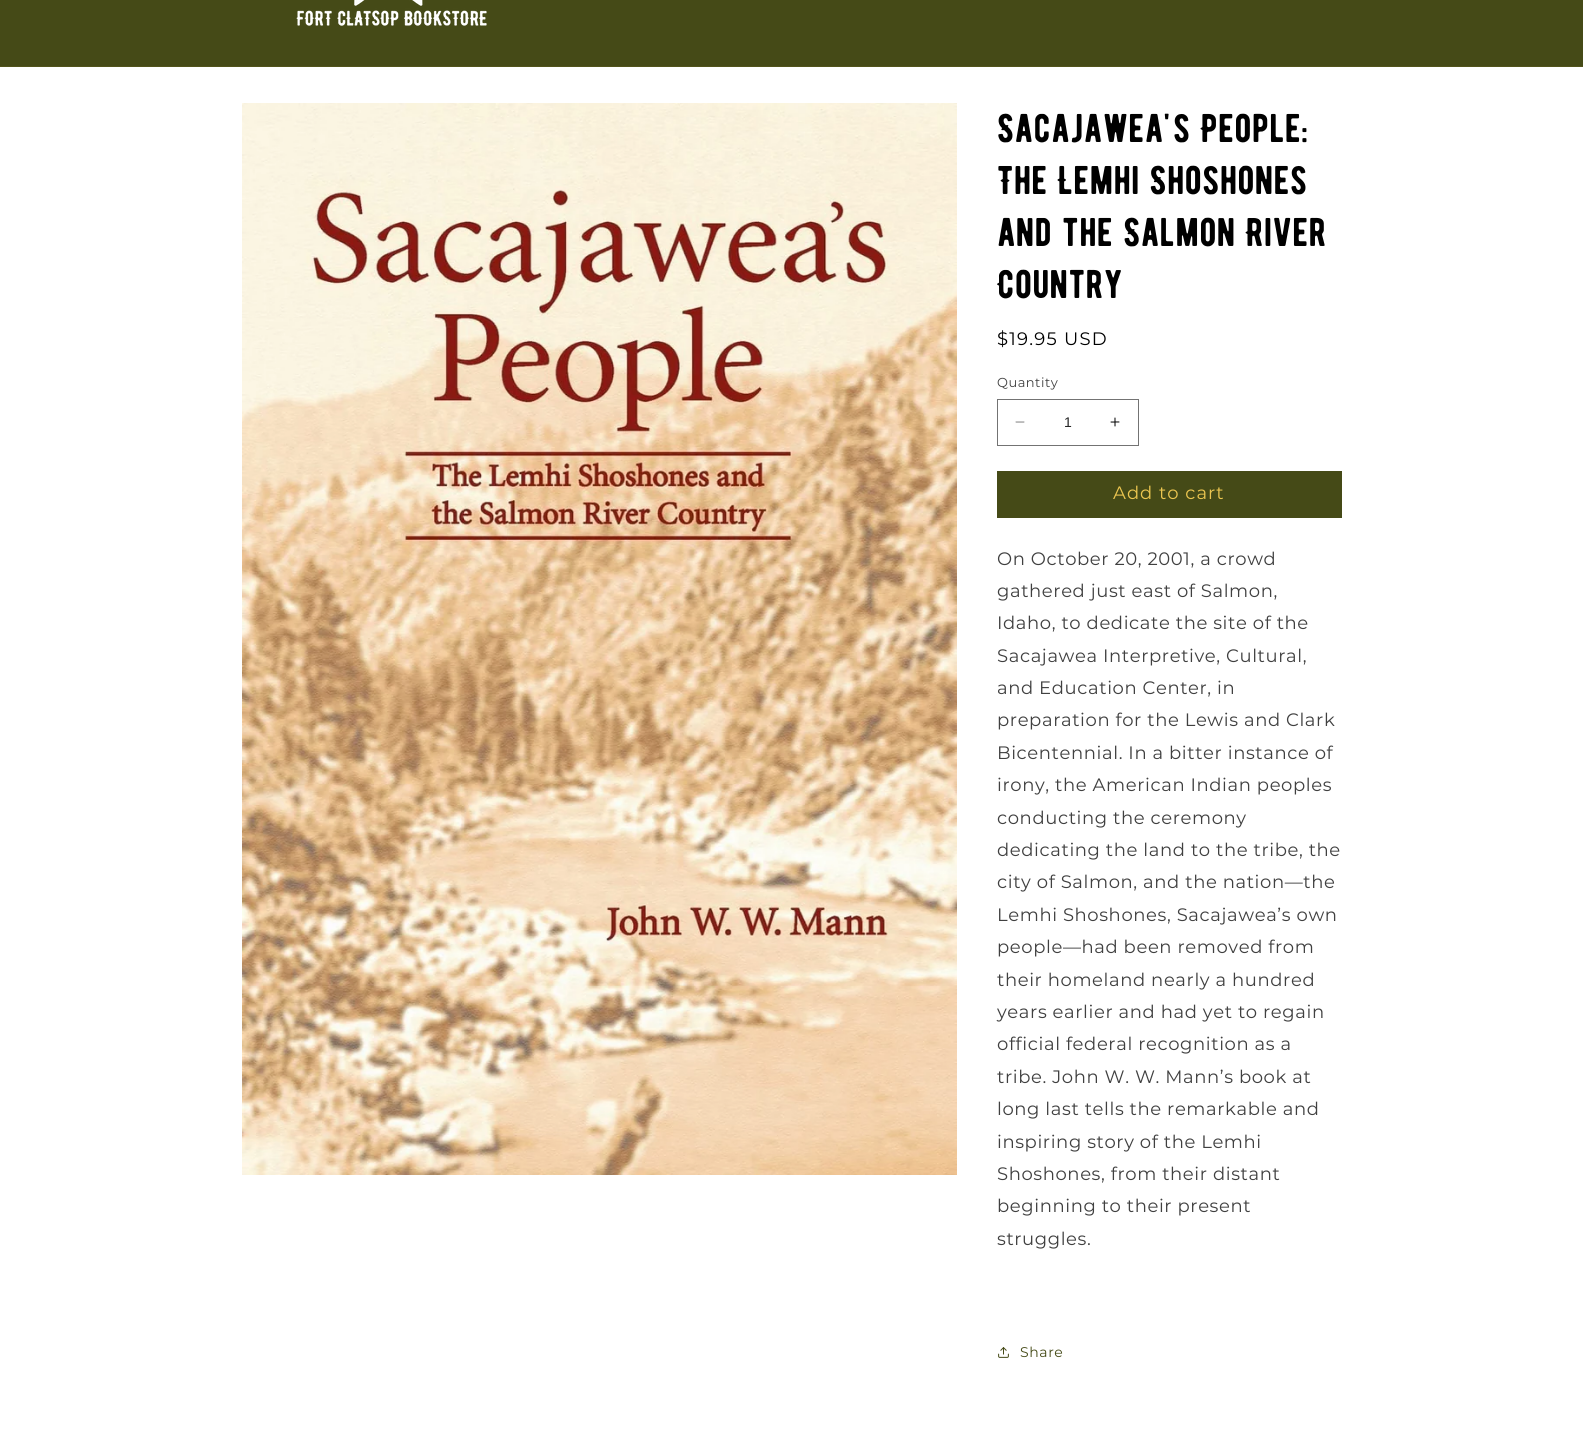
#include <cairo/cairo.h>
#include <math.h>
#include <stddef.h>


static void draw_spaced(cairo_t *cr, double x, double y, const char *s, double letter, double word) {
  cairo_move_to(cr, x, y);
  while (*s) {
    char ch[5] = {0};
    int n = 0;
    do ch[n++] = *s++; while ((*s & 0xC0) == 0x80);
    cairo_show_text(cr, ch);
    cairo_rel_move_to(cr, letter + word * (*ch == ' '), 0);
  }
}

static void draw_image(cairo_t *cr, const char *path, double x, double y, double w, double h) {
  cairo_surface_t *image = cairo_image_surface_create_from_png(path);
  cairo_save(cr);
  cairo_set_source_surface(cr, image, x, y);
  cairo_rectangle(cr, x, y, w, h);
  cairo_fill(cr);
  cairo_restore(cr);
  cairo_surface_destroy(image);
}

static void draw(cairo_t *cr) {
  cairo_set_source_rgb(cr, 1, 1, 1);
  cairo_paint(cr);
  cairo_set_source_rgb(cr, 69 / 255.0, 74 / 255.0, 23 / 255.0);
  cairo_rectangle(cr, 0, 0, 1583, 66);
  cairo_fill(cr);
  cairo_set_source_rgb(cr, 82 / 255.0, 84 / 255.0, 28 / 255.0);
  cairo_rectangle(cr, 0, 66, 1583, 1);
  cairo_fill(cr);
  draw_image(cr, "images/1.png", 296, 0, 191, 26);
  draw_image(cr, "images/2.png", 242, 103, 715, 1072);
  draw_image(cr, "images/3.png", 1015, 421, 10, 2);
  draw_image(cr, "images/4.png", 1110, 417, 10, 10);
  cairo_rectangle(cr, 997.5, 399.5, 141, 46);
  cairo_set_source_rgb(cr, 115 / 255.0, 115 / 255.0, 115 / 255.0);
  cairo_set_line_width(cr, 1);
  cairo_stroke(cr);
  cairo_set_source_rgb(cr, 69 / 255.0, 74 / 255.0, 23 / 255.0);
  cairo_rectangle(cr, 997, 471, 345, 47);
  cairo_fill(cr);
  draw_image(cr, "images/5.png", 998, 1347, 11, 11);
  cairo_select_font_face(cr, "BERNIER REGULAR", CAIRO_FONT_SLANT_NORMAL, CAIRO_FONT_WEIGHT_NORMAL);
  cairo_set_font_size(cr, 40);
  cairo_set_source_rgb(cr, 0, 0, 0);
  draw_spaced(cr, 997, 142, "Sacajawea's People:", 0.6, 0);
  draw_spaced(cr, 997, 194, "The Lemhi Shoshones", 0.6, 0);
  draw_spaced(cr, 997, 246, "and the Salmon River", 0.6, 0);
  draw_spaced(cr, 997, 298, "Country", 0.6, 0);
  cairo_select_font_face(cr, "Montserrat", CAIRO_FONT_SLANT_NORMAL, CAIRO_FONT_WEIGHT_NORMAL);
  cairo_set_font_size(cr, 18);
  draw_spaced(cr, 997, 345, "$19.95 USD", 1.25, 0);
  cairo_set_font_size(cr, 13);
  cairo_set_source_rgb(cr, 64 / 255.0, 64 / 255.0, 64 / 255.0);
  draw_spaced(cr, 997, 387, "Quantity", 0.5, 0);
  cairo_select_font_face(cr, "Liberation Sans", CAIRO_FONT_SLANT_NORMAL, CAIRO_FONT_WEIGHT_NORMAL);
  cairo_set_font_size(cr, 14);
  cairo_set_source_rgb(cr, 38 / 255.0, 38 / 255.0, 38 / 255.0);
  cairo_move_to(cr, 1064, 427);
  cairo_show_text(cr, "1");
  cairo_select_font_face(cr, "Montserrat", CAIRO_FONT_SLANT_NORMAL, CAIRO_FONT_WEIGHT_NORMAL);
  cairo_set_font_size(cr, 18);
  cairo_set_source_rgb(cr, 236 / 255.0, 198 / 255.0, 80 / 255.0);
  draw_spaced(cr, 1113, 499, "Add to cart", 1, 0);
  cairo_set_source_rgb(cr, 64 / 255.0, 64 / 255.0, 64 / 255.0);
  draw_spaced(cr, 997, 565, "On October 20, 2001, a crowd", 0.6, 0);
  draw_spaced(cr, 997, 597, "gathered just east of Salmon,", 0.6, 0);
  draw_spaced(cr, 997, 629, "Idaho, to dedicate the site of the", 0.6, 0);
  draw_spaced(cr, 997, 662, "Sacajawea Interpretive, Cultural,", 0.6, 0);
  draw_spaced(cr, 997, 694, "and Education Center, in", 0.6, 0);
  draw_spaced(cr, 997, 726, "preparation for the Lewis and Clark", 0.6, 0);
  draw_spaced(cr, 997, 759, "Bicentennial. In a bitter instance of", 0.6, 0);
  draw_spaced(cr, 997, 791, "irony, the American Indian peoples", 0.6, 0);
  draw_spaced(cr, 997, 824, "conducting the ceremony", 0.6, 0);
  draw_spaced(cr, 997, 856, "dedicating the land to the tribe, the", 0.6, 0);
  draw_spaced(cr, 997, 888, "city of Salmon, and the nation—the", 0.6, 0);
  draw_spaced(cr, 997, 921, "Lemhi Shoshones, Sacajawea’s own", 0.6, 0);
  draw_spaced(cr, 997, 953, "people—had been removed from", 0.6, 0);
  draw_spaced(cr, 997, 986, "their homeland nearly a hundred", 0.6, 0);
  draw_spaced(cr, 997, 1018, "years earlier and had yet to regain", 0.6, 0);
  draw_spaced(cr, 997, 1050, "official federal recognition as a", 0.6, 0);
  draw_spaced(cr, 997, 1083, "tribe. John W. W. Mann’s book at", 0.6, 0);
  draw_spaced(cr, 997, 1115, "long last tells the remarkable and", 0.6, 0);
  draw_spaced(cr, 997, 1148, "inspiring story of the Lemhi", 0.6, 0);
  draw_spaced(cr, 997, 1180, "Shoshones, from their distant", 0.6, 0);
  draw_spaced(cr, 997, 1212, "beginning to their present", 0.6, 0);
  draw_spaced(cr, 997, 1245, "struggles.", 0.6, 0);
  cairo_set_font_size(cr, 14);
  cairo_set_source_rgb(cr, 69 / 255.0, 74 / 255.0, 23 / 255.0);
  draw_spaced(cr, 1020, 1357, "Share", 0.6, 0);
}

int main(void) {
  cairo_surface_t *surface = cairo_image_surface_create(CAIRO_FORMAT_RGB24, 1583, 1442);
  cairo_t *cr = cairo_create(surface);
  cairo_font_options_t *options = cairo_font_options_create();
  cairo_font_options_set_hint_metrics(options, CAIRO_HINT_METRICS_OFF);
  cairo_font_options_set_hint_style(options, CAIRO_HINT_STYLE_NONE);
  cairo_set_font_options(cr, options);
  cairo_set_miter_limit(cr, 4);
  draw(cr);
  cairo_surface_write_to_png(surface, "out.png");
  cairo_font_options_destroy(options);
  cairo_destroy(cr);
  cairo_surface_destroy(surface);
  return 0;
}
